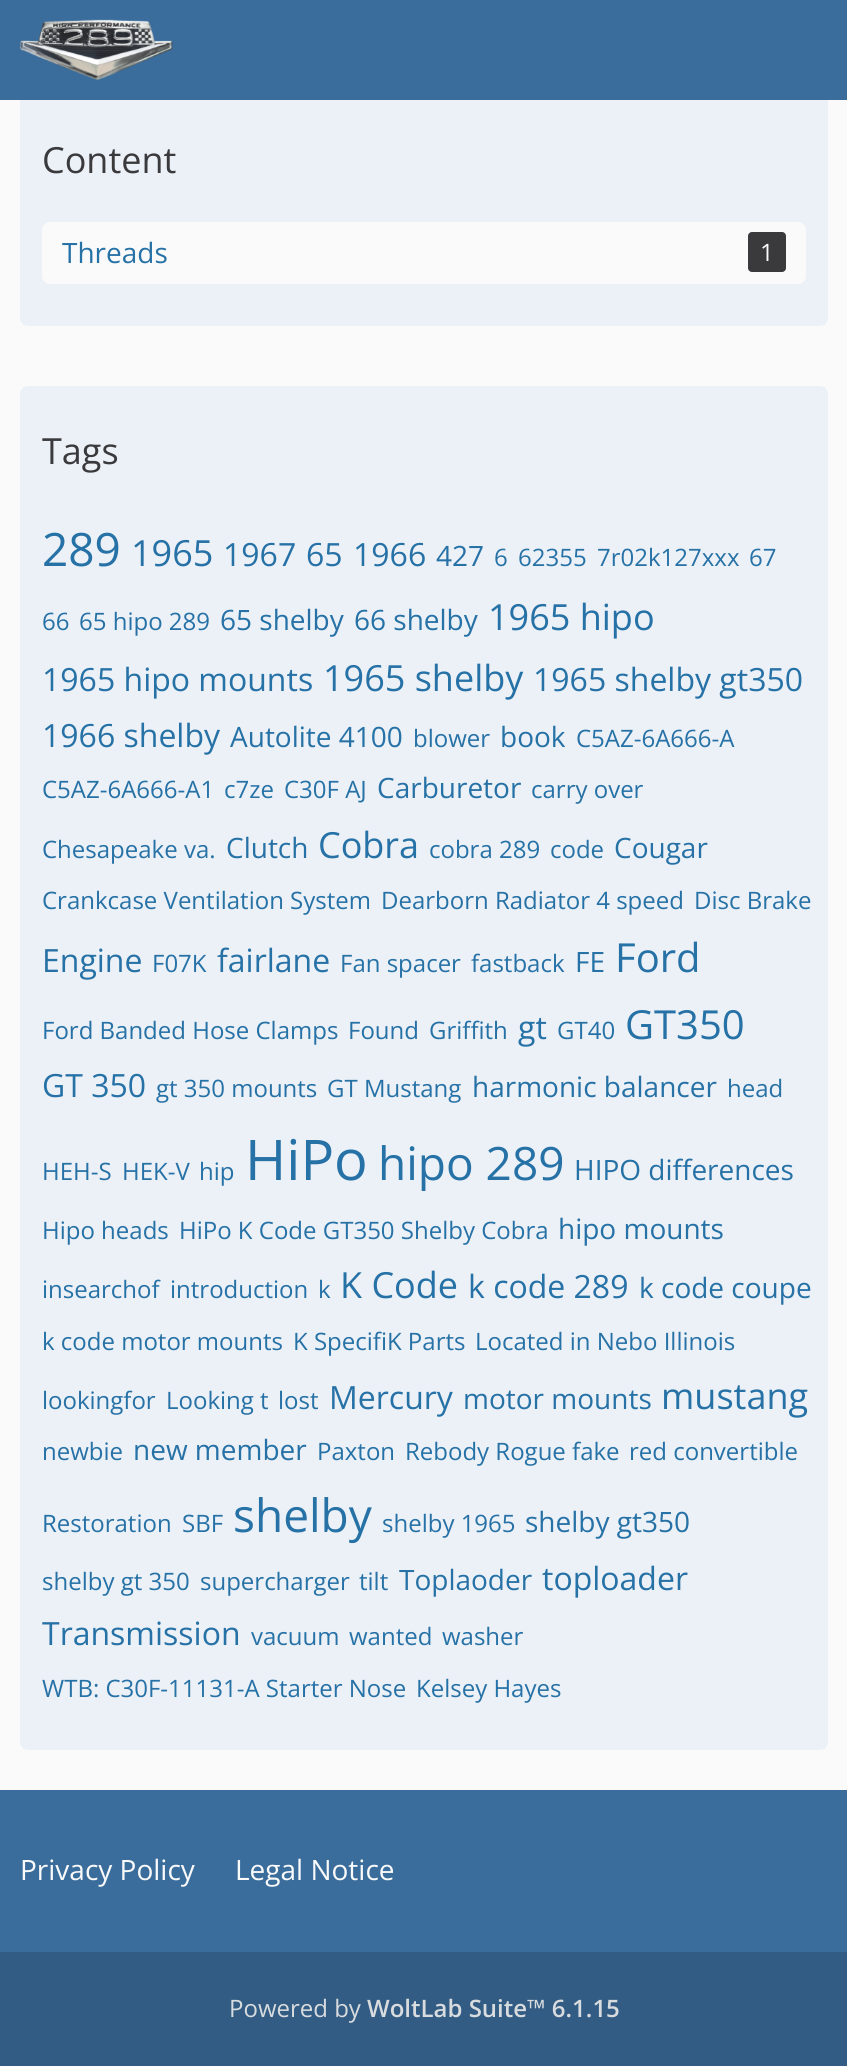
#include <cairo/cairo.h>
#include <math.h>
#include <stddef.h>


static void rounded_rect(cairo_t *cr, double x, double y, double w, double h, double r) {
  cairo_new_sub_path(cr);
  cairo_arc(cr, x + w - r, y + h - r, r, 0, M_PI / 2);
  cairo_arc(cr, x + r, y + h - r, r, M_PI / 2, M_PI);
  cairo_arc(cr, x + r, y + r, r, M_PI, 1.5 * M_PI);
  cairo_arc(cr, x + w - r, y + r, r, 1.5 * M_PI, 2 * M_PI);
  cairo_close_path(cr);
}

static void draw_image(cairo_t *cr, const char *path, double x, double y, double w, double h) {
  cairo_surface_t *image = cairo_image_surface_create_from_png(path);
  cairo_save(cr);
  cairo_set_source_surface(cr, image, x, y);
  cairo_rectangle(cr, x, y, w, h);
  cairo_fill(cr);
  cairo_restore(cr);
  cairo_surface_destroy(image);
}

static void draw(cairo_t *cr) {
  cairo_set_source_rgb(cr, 250 / 255.0, 250 / 255.0, 250 / 255.0);
  cairo_paint(cr);
  cairo_set_source_rgb(cr, 236 / 255.0, 241 / 255.0, 247 / 255.0);
  rounded_rect(cr, 20, 94, 808, 232, 8);
  cairo_fill(cr);
  cairo_set_source_rgb(cr, 58 / 255.0, 109 / 255.0, 156 / 255.0);
  cairo_rectangle(cr, 0, 0, 847, 100);
  cairo_fill(cr);
  draw_image(cr, "images/1.png", 20, 19, 153, 61);
  cairo_set_source_rgb(cr, 250 / 255.0, 250 / 255.0, 250 / 255.0);
  rounded_rect(cr, 42, 222, 764, 62, 8);
  cairo_fill(cr);
  cairo_set_source_rgb(cr, 58 / 255.0, 58 / 255.0, 61 / 255.0);
  rounded_rect(cr, 748, 232, 38, 40, 4);
  cairo_fill(cr);
  cairo_set_source_rgb(cr, 236 / 255.0, 241 / 255.0, 247 / 255.0);
  rounded_rect(cr, 20, 386, 808, 1364, 8);
  cairo_fill(cr);
  cairo_set_source_rgb(cr, 58 / 255.0, 109 / 255.0, 156 / 255.0);
  cairo_rectangle(cr, 0, 1790, 847, 162);
  cairo_fill(cr);
  cairo_set_source_rgb(cr, 50 / 255.0, 92 / 255.0, 132 / 255.0);
  cairo_rectangle(cr, 0, 1952, 847, 114);
  cairo_fill(cr);
  cairo_select_font_face(cr, "Open Sans", CAIRO_FONT_SLANT_NORMAL, CAIRO_FONT_WEIGHT_NORMAL);
  cairo_set_font_size(cr, 36);
  cairo_set_source_rgb(cr, 58 / 255.0, 58 / 255.0, 61 / 255.0);
  cairo_move_to(cr, 42, 173);
  cairo_show_text(cr, "Content");
  cairo_set_font_size(cr, 28);
  cairo_set_source_rgb(cr, 38 / 255.0, 113 / 255.0, 166 / 255.0);
  cairo_move_to(cr, 62, 263);
  cairo_show_text(cr, "Threads");
  cairo_set_font_size(cr, 24);
  cairo_set_source_rgb(cr, 250 / 255.0, 250 / 255.0, 250 / 255.0);
  cairo_move_to(cr, 760, 261);
  cairo_show_text(cr, "1");
  cairo_set_font_size(cr, 36);
  cairo_set_source_rgb(cr, 58 / 255.0, 58 / 255.0, 61 / 255.0);
  cairo_move_to(cr, 42, 464);
  cairo_show_text(cr, "Tags");
  cairo_set_font_size(cr, 46);
  cairo_set_source_rgb(cr, 38 / 255.0, 113 / 255.0, 166 / 255.0);
  cairo_move_to(cr, 42, 566);
  cairo_show_text(cr, "289");
  cairo_set_font_size(cr, 36);
  cairo_move_to(cr, 131, 566);
  cairo_show_text(cr, "1965");
  cairo_set_font_size(cr, 32);
  cairo_move_to(cr, 223, 566);
  cairo_show_text(cr, "1967");
  cairo_move_to(cr, 306, 566);
  cairo_show_text(cr, "65");
  cairo_move_to(cr, 353, 566);
  cairo_show_text(cr, "1966");
  cairo_set_font_size(cr, 28);
  cairo_move_to(cr, 436, 566);
  cairo_show_text(cr, "427");
  cairo_set_font_size(cr, 24);
  cairo_move_to(cr, 494, 566);
  cairo_show_text(cr, "6");
  cairo_move_to(cr, 518, 566);
  cairo_show_text(cr, "62355");
  cairo_move_to(cr, 597, 566);
  cairo_show_text(cr, "7r02k127xxx");
  cairo_move_to(cr, 749, 566);
  cairo_show_text(cr, "67");
  cairo_move_to(cr, 42, 630);
  cairo_show_text(cr, "66");
  cairo_move_to(cr, 79, 630);
  cairo_show_text(cr, "65 hipo 289");
  cairo_set_font_size(cr, 28);
  cairo_move_to(cr, 220, 630);
  cairo_show_text(cr, "65 shelby");
  cairo_move_to(cr, 354, 630);
  cairo_show_text(cr, "66 shelby");
  cairo_set_font_size(cr, 36);
  cairo_move_to(cr, 488, 630);
  cairo_show_text(cr, "1965 hipo");
  cairo_set_font_size(cr, 32);
  cairo_move_to(cr, 42, 691);
  cairo_show_text(cr, "1965 hipo mounts");
  cairo_set_font_size(cr, 36);
  cairo_move_to(cr, 323, 691);
  cairo_show_text(cr, "1965 shelby");
  cairo_set_font_size(cr, 32);
  cairo_move_to(cr, 533, 691);
  cairo_show_text(cr, "1965 shelby gt350");
  cairo_move_to(cr, 42, 747);
  cairo_show_text(cr, "1966 shelby");
  cairo_set_font_size(cr, 28);
  cairo_move_to(cr, 230, 747);
  cairo_show_text(cr, "Autolite 4100");
  cairo_set_font_size(cr, 24);
  cairo_move_to(cr, 413, 747);
  cairo_show_text(cr, "blower");
  cairo_set_font_size(cr, 28);
  cairo_move_to(cr, 500, 747);
  cairo_show_text(cr, "book");
  cairo_set_font_size(cr, 24);
  cairo_move_to(cr, 576, 747);
  cairo_show_text(cr, "C5AZ-6A666-A");
  cairo_move_to(cr, 42, 798);
  cairo_show_text(cr, "C5AZ-6A666-A1");
  cairo_move_to(cr, 224, 798);
  cairo_show_text(cr, "c7ze");
  cairo_move_to(cr, 284, 798);
  cairo_show_text(cr, "C30F AJ");
  cairo_set_font_size(cr, 28);
  cairo_move_to(cr, 377, 798);
  cairo_show_text(cr, "Carburetor");
  cairo_set_font_size(cr, 24);
  cairo_move_to(cr, 531, 798);
  cairo_show_text(cr, "carry over");
  cairo_move_to(cr, 42, 858);
  cairo_show_text(cr, "Chesapeake va.");
  cairo_set_font_size(cr, 28);
  cairo_move_to(cr, 226, 858);
  cairo_show_text(cr, "Clutch");
  cairo_set_font_size(cr, 36);
  cairo_move_to(cr, 318, 858);
  cairo_show_text(cr, "Cobra");
  cairo_set_font_size(cr, 24);
  cairo_move_to(cr, 429, 858);
  cairo_show_text(cr, "cobra 289");
  cairo_move_to(cr, 550, 858);
  cairo_show_text(cr, "code");
  cairo_set_font_size(cr, 28);
  cairo_move_to(cr, 614, 858);
  cairo_show_text(cr, "Cougar");
  cairo_set_font_size(cr, 24);
  cairo_move_to(cr, 42, 909);
  cairo_show_text(cr, "Crankcase Ventilation System");
  cairo_move_to(cr, 381, 909);
  cairo_show_text(cr, "Dearborn Radiator 4 speed");
  cairo_move_to(cr, 694, 909);
  cairo_show_text(cr, "Disc Brake");
  cairo_set_font_size(cr, 32);
  cairo_move_to(cr, 42, 972);
  cairo_show_text(cr, "Engine");
  cairo_set_font_size(cr, 24);
  cairo_move_to(cr, 152, 972);
  cairo_show_text(cr, "F07K");
  cairo_set_font_size(cr, 32);
  cairo_move_to(cr, 217, 972);
  cairo_show_text(cr, "fairlane");
  cairo_set_font_size(cr, 24);
  cairo_move_to(cr, 340, 972);
  cairo_show_text(cr, "Fan spacer");
  cairo_move_to(cr, 471, 972);
  cairo_show_text(cr, "fastback");
  cairo_set_font_size(cr, 28);
  cairo_move_to(cr, 575, 972);
  cairo_show_text(cr, "FE");
  cairo_set_font_size(cr, 40);
  cairo_move_to(cr, 615, 972);
  cairo_show_text(cr, "Ford");
  cairo_set_font_size(cr, 24);
  cairo_move_to(cr, 42, 1039);
  cairo_show_text(cr, "Ford Banded Hose Clamps");
  cairo_move_to(cr, 348, 1039);
  cairo_show_text(cr, "Found");
  cairo_move_to(cr, 429, 1039);
  cairo_show_text(cr, "Griffith");
  cairo_set_font_size(cr, 32);
  cairo_move_to(cr, 518, 1039);
  cairo_show_text(cr, "gt");
  cairo_set_font_size(cr, 24);
  cairo_move_to(cr, 557, 1039);
  cairo_show_text(cr, "GT40");
  cairo_set_font_size(cr, 40);
  cairo_move_to(cr, 625, 1039);
  cairo_show_text(cr, "GT350");
  cairo_set_font_size(cr, 32);
  cairo_move_to(cr, 42, 1097);
  cairo_show_text(cr, "GT 350");
  cairo_set_font_size(cr, 24);
  cairo_move_to(cr, 156, 1097);
  cairo_show_text(cr, "gt 350 mounts");
  cairo_move_to(cr, 327, 1097);
  cairo_show_text(cr, "GT Mustang");
  cairo_set_font_size(cr, 28);
  cairo_move_to(cr, 472, 1097);
  cairo_show_text(cr, "harmonic balancer");
  cairo_set_font_size(cr, 24);
  cairo_move_to(cr, 727, 1097);
  cairo_show_text(cr, "head");
  cairo_move_to(cr, 42, 1180);
  cairo_show_text(cr, "HEH-S");
  cairo_move_to(cr, 122, 1180);
  cairo_show_text(cr, "HEK-V");
  cairo_move_to(cr, 199, 1180);
  cairo_show_text(cr, "hip");
  cairo_set_font_size(cr, 56);
  cairo_move_to(cr, 245, 1180);
  cairo_show_text(cr, "HiPo");
  cairo_set_font_size(cr, 46);
  cairo_move_to(cr, 378, 1180);
  cairo_show_text(cr, "hipo 289");
  cairo_set_font_size(cr, 28);
  cairo_move_to(cr, 574, 1180);
  cairo_show_text(cr, "HIPO differences");
  cairo_set_font_size(cr, 24);
  cairo_move_to(cr, 42, 1239);
  cairo_show_text(cr, "Hipo heads");
  cairo_move_to(cr, 179, 1239);
  cairo_show_text(cr, "HiPo K Code GT350 Shelby Cobra");
  cairo_set_font_size(cr, 28);
  cairo_move_to(cr, 558, 1239);
  cairo_show_text(cr, "hipo mounts");
  cairo_set_font_size(cr, 24);
  cairo_move_to(cr, 42, 1298);
  cairo_show_text(cr, "insearchof");
  cairo_move_to(cr, 170, 1298);
  cairo_show_text(cr, "introduction");
  cairo_move_to(cr, 318, 1298);
  cairo_show_text(cr, "k");
  cairo_set_font_size(cr, 36);
  cairo_move_to(cr, 340, 1298);
  cairo_show_text(cr, "K Code");
  cairo_set_font_size(cr, 32);
  cairo_move_to(cr, 468, 1298);
  cairo_show_text(cr, "k code 289");
  cairo_set_font_size(cr, 28);
  cairo_move_to(cr, 639, 1298);
  cairo_show_text(cr, "k code coupe");
  cairo_set_font_size(cr, 24);
  cairo_move_to(cr, 42, 1350);
  cairo_show_text(cr, "k code motor mounts");
  cairo_move_to(cr, 293, 1350);
  cairo_show_text(cr, "K SpecifiK Parts");
  cairo_move_to(cr, 475, 1350);
  cairo_show_text(cr, "Located in Nebo Illinois");
  cairo_move_to(cr, 42, 1409);
  cairo_show_text(cr, "lookingfor");
  cairo_move_to(cr, 166, 1409);
  cairo_show_text(cr, "Looking t");
  cairo_move_to(cr, 278, 1409);
  cairo_show_text(cr, "lost");
  cairo_set_font_size(cr, 32);
  cairo_move_to(cr, 329, 1409);
  cairo_show_text(cr, "Mercury");
  cairo_set_font_size(cr, 28);
  cairo_move_to(cr, 463, 1409);
  cairo_show_text(cr, "motor mounts");
  cairo_set_font_size(cr, 36);
  cairo_move_to(cr, 661, 1409);
  cairo_show_text(cr, "mustang");
  cairo_set_font_size(cr, 24);
  cairo_move_to(cr, 42, 1460);
  cairo_show_text(cr, "newbie");
  cairo_set_font_size(cr, 28);
  cairo_move_to(cr, 133, 1460);
  cairo_show_text(cr, "new member");
  cairo_set_font_size(cr, 24);
  cairo_move_to(cr, 317, 1460);
  cairo_show_text(cr, "Paxton");
  cairo_move_to(cr, 405, 1460);
  cairo_show_text(cr, "Rebody Rogue fake");
  cairo_move_to(cr, 629, 1460);
  cairo_show_text(cr, "red convertible");
  cairo_move_to(cr, 42, 1532);
  cairo_show_text(cr, "Restoration");
  cairo_move_to(cr, 182, 1532);
  cairo_show_text(cr, "SBF");
  cairo_set_font_size(cr, 46);
  cairo_move_to(cr, 233, 1532);
  cairo_show_text(cr, "shelby");
  cairo_set_font_size(cr, 24);
  cairo_move_to(cr, 382, 1532);
  cairo_show_text(cr, "shelby 1965");
  cairo_set_font_size(cr, 28);
  cairo_move_to(cr, 525, 1532);
  cairo_show_text(cr, "shelby gt350");
  cairo_set_font_size(cr, 24);
  cairo_move_to(cr, 42, 1590);
  cairo_show_text(cr, "shelby gt 350");
  cairo_move_to(cr, 200, 1590);
  cairo_show_text(cr, "supercharger");
  cairo_move_to(cr, 359, 1590);
  cairo_show_text(cr, "tilt");
  cairo_set_font_size(cr, 28);
  cairo_move_to(cr, 399, 1590);
  cairo_show_text(cr, "Toplaoder");
  cairo_set_font_size(cr, 32);
  cairo_move_to(cr, 542, 1590);
  cairo_show_text(cr, "toploader");
  cairo_move_to(cr, 42, 1645);
  cairo_show_text(cr, "Transmission");
  cairo_set_font_size(cr, 24);
  cairo_move_to(cr, 251, 1645);
  cairo_show_text(cr, "vacuum");
  cairo_move_to(cr, 349, 1645);
  cairo_show_text(cr, "wanted");
  cairo_move_to(cr, 442, 1645);
  cairo_show_text(cr, "washer");
  cairo_move_to(cr, 42, 1697);
  cairo_show_text(cr, "WTB: C30F-11131-A Starter Nose");
  cairo_move_to(cr, 416, 1697);
  cairo_show_text(cr, "Kelsey Hayes");
  cairo_set_font_size(cr, 28);
  cairo_set_source_rgb(cr, 250 / 255.0, 250 / 255.0, 250 / 255.0);
  cairo_move_to(cr, 20, 1880);
  cairo_show_text(cr, "Privacy Policy");
  cairo_move_to(cr, 235, 1880);
  cairo_show_text(cr, "Legal Notice");
  cairo_set_font_size(cr, 24);
  cairo_set_source_rgb(cr, 217 / 255.0, 220 / 255.0, 222 / 255.0);
  cairo_move_to(cr, 229, 2017);
  cairo_show_text(cr, "Powered by");
  cairo_select_font_face(cr, "Open Sans SemiBold", CAIRO_FONT_SLANT_NORMAL, CAIRO_FONT_WEIGHT_NORMAL);
  cairo_move_to(cr, 367, 2017);
  cairo_show_text(cr, "WoltLab Suite™ 6.1.15");
}

int main(void) {
  cairo_surface_t *surface = cairo_image_surface_create(CAIRO_FORMAT_RGB24, 847, 2066);
  cairo_t *cr = cairo_create(surface);
  cairo_font_options_t *options = cairo_font_options_create();
  cairo_font_options_set_hint_metrics(options, CAIRO_HINT_METRICS_OFF);
  cairo_font_options_set_hint_style(options, CAIRO_HINT_STYLE_NONE);
  cairo_set_font_options(cr, options);
  cairo_set_miter_limit(cr, 4);
  draw(cr);
  cairo_surface_write_to_png(surface, "out.png");
  cairo_font_options_destroy(options);
  cairo_destroy(cr);
  cairo_surface_destroy(surface);
  return 0;
}
